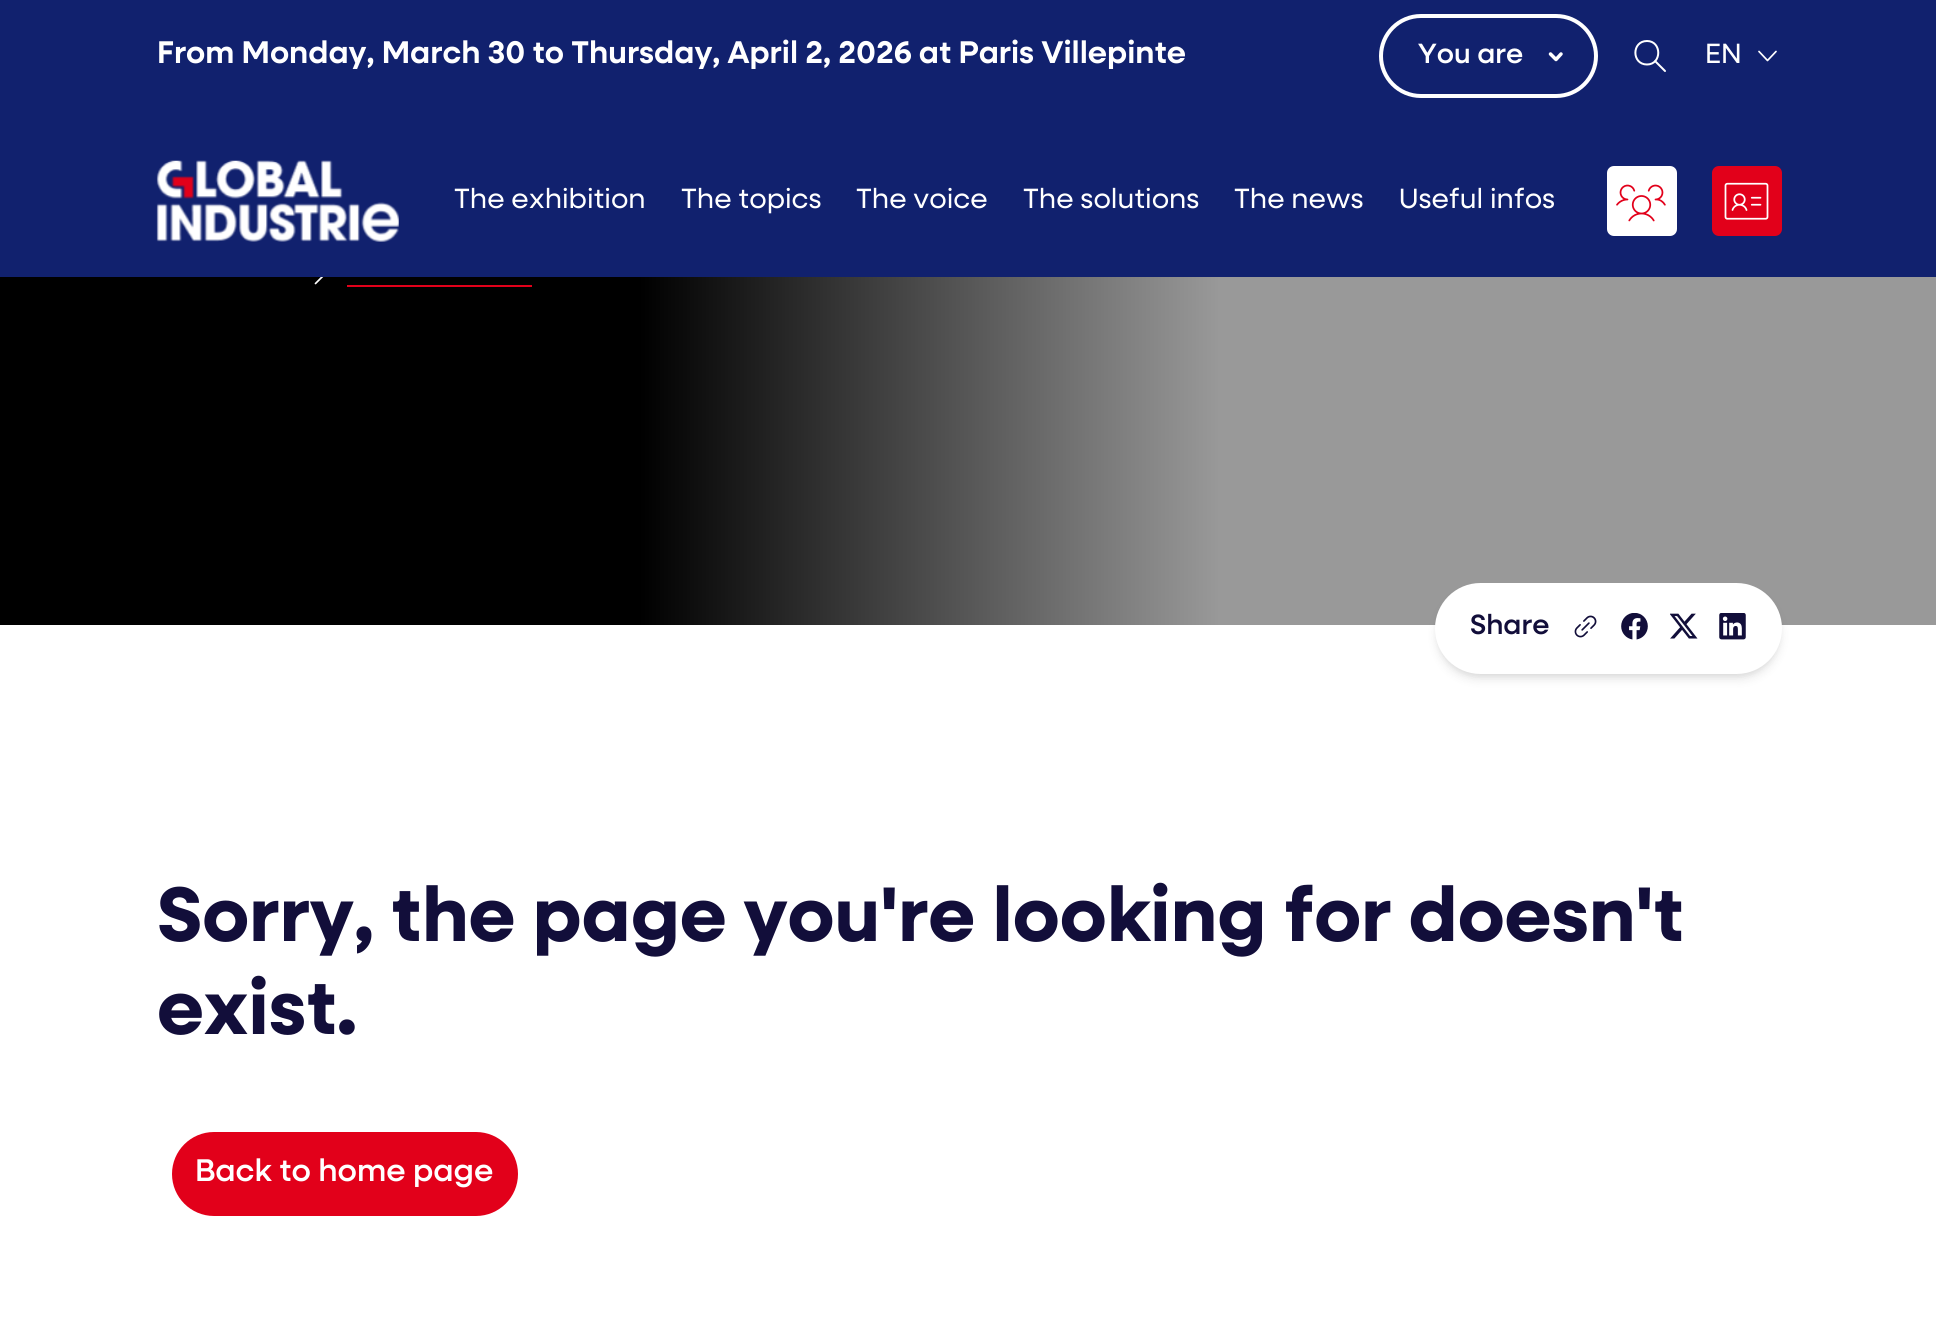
#include <cairo/cairo.h>
#include <math.h>
#include <stddef.h>


static void rounded_rect(cairo_t *cr, double x, double y, double w, double h, double r) {
  cairo_new_sub_path(cr);
  cairo_arc(cr, x + w - r, y + h - r, r, 0, M_PI / 2);
  cairo_arc(cr, x + r, y + h - r, r, M_PI / 2, M_PI);
  cairo_arc(cr, x + r, y + r, r, M_PI, 1.5 * M_PI);
  cairo_arc(cr, x + w - r, y + r, r, 1.5 * M_PI, 2 * M_PI);
  cairo_close_path(cr);
}

static void draw_shadow(cairo_t *cr, double x, double y, double w, double h, double r, double blur, double alpha) {
  cairo_push_group_with_content(cr, CAIRO_CONTENT_ALPHA);
  cairo_set_operator(cr, CAIRO_OPERATOR_SOURCE);
  for (int i = 15; i >= -15 && fmin(w, h) + blur * i / 3 > 0; i -= 2) {
    double e = blur * i / 6;
    cairo_set_source_rgba(cr, 0, 0, 0, alpha * erfc((i - 1) / 8.5) / 2);
    rounded_rect(cr, x - e, y - e, w + 2 * e, h + 2 * e, fmax(0, fmin(r + e + blur * .6, fmin(w, h) / 2 + e)));
    cairo_fill(cr);
  }
  cairo_pattern_t *soft = cairo_pop_group(cr);
  cairo_mask(cr, soft);
  cairo_pattern_destroy(soft);
}

static void draw_image(cairo_t *cr, const char *path, double x, double y, double w, double h) {
  cairo_surface_t *image = cairo_image_surface_create_from_png(path);
  cairo_save(cr);
  cairo_set_source_surface(cr, image, x, y);
  cairo_rectangle(cr, x, y, w, h);
  cairo_fill(cr);
  cairo_restore(cr);
  cairo_surface_destroy(image);
}

static void draw(cairo_t *cr) {
  cairo_pattern_t *gradient;
  cairo_set_source_rgb(cr, 1, 1, 1);
  cairo_paint(cr);
  gradient = cairo_pattern_create_linear(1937, 253, -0.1, 253);
  cairo_pattern_add_color_stop_rgba(gradient, 0.37, 153 / 255.0, 153 / 255.0, 153 / 255.0, 1);
  cairo_pattern_add_color_stop_rgba(gradient, 0.67, 0, 0, 0, 1);
  cairo_set_source(cr, gradient);
  cairo_pattern_destroy(gradient);
  cairo_rectangle(cr, 0, 277, 1936, 348);
  cairo_fill(cr);
  cairo_new_path(cr);
  cairo_move_to(cr, 315.5, 266);
  cairo_line_to(cr, 324.5, 274.5);
  cairo_line_to(cr, 315.5, 283.5);
  cairo_set_source_rgb(cr, 1, 1, 1);
  cairo_set_line_width(cr, 1.7);
  cairo_set_line_cap(cr, CAIRO_LINE_CAP_ROUND);
  cairo_set_line_join(cr, CAIRO_LINE_JOIN_ROUND);
  cairo_stroke(cr);
  cairo_set_source_rgb(cr, 17 / 255.0, 33 / 255.0, 110 / 255.0);
  cairo_rectangle(cr, 0, 0, 1936, 277);
  cairo_fill(cr);
  rounded_rect(cr, 1381, 16, 215, 80, 40);
  cairo_set_source_rgb(cr, 1, 1, 1);
  cairo_set_line_width(cr, 4);
  cairo_set_line_cap(cr, CAIRO_LINE_CAP_BUTT);
  cairo_set_line_join(cr, CAIRO_LINE_JOIN_MITER);
  cairo_stroke(cr);
  cairo_new_path(cr);
  cairo_move_to(cr, 1561, 54);
  cairo_line_to(cr, 1556, 59.5);
  cairo_line_to(cr, 1550.5, 54);
  cairo_set_line_width(cr, 3.5);
  cairo_set_line_cap(cr, CAIRO_LINE_CAP_ROUND);
  cairo_set_line_join(cr, CAIRO_LINE_JOIN_ROUND);
  cairo_stroke(cr);
  cairo_new_path(cr);
  cairo_move_to(cr, 1647, 64.5);
  cairo_curve_to(cr, 1662, 64.5, 1662, 41, 1647, 41);
  cairo_curve_to(cr, 1631.5, 41, 1631.5, 64.5, 1647, 64.5);
  cairo_close_path(cr);
  cairo_move_to(cr, 1655, 61);
  cairo_line_to(cr, 1665, 71);
  cairo_set_line_width(cr, 2);
  cairo_stroke(cr);
  cairo_new_path(cr);
  cairo_move_to(cr, 1776, 51.5);
  cairo_line_to(cr, 1767.5, 60.5);
  cairo_line_to(cr, 1759, 51.5);
  cairo_set_line_width(cr, 1.7);
  cairo_stroke(cr);
  draw_image(cr, "images/1.png", 156, 160, 243, 82);
  rounded_rect(cr, 1607, 166, 70, 70, 7);
  cairo_fill(cr);
  draw_image(cr, "images/2.png", 1616, 184, 50, 38);
  cairo_set_source_rgb(cr, 226 / 255.0, 0, 26 / 255.0);
  rounded_rect(cr, 1712, 166, 70, 70, 7);
  cairo_fill(cr);
  draw_image(cr, "images/3.png", 1724, 182, 45, 38);
  cairo_rectangle(cr, 347, 285, 185, 2);
  cairo_fill(cr);
  cairo_set_source_rgb(cr, 0, 0, 0);
  draw_shadow(cr, 1439, 590, 339, 84, 42, 3.5, 0.1);
  draw_shadow(cr, 1437, 592, 343, 87, 43.5, 5, 0.1);
  cairo_set_source_rgb(cr, 1, 1, 1);
  rounded_rect(cr, 1435, 583, 347, 91, 45.5);
  cairo_fill(cr);
  draw_image(cr, "images/4.png", 1574, 615, 23, 23);
  draw_image(cr, "images/5.png", 1621, 613, 27, 27);
  draw_image(cr, "images/6.png", 1670, 613, 28, 26);
  draw_image(cr, "images/7.png", 1719, 613, 27, 27);
  cairo_set_source_rgb(cr, 226 / 255.0, 0, 26 / 255.0);
  rounded_rect(cr, 172, 1132, 346, 84, 42);
  cairo_fill(cr);
  cairo_select_font_face(cr, "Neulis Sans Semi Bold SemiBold", CAIRO_FONT_SLANT_NORMAL, CAIRO_FONT_WEIGHT_NORMAL);
  cairo_set_font_size(cr, 31.5);
  cairo_set_source_rgb(cr, 1, 1, 1);
  cairo_move_to(cr, 157, 63);
  cairo_show_text(cr, "From Monday, March 30 to Thursday, April 2, 2026 at Paris Villepinte");
  cairo_select_font_face(cr, "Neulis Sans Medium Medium", CAIRO_FONT_SLANT_NORMAL, CAIRO_FONT_WEIGHT_NORMAL);
  cairo_set_font_size(cr, 28);
  cairo_move_to(cr, 1418, 63);
  cairo_show_text(cr, "You are");
  cairo_select_font_face(cr, "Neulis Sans", CAIRO_FONT_SLANT_NORMAL, CAIRO_FONT_WEIGHT_NORMAL);
  cairo_move_to(cr, 1705, 63);
  cairo_show_text(cr, "EN");
  cairo_move_to(cr, 454, 208);
  cairo_show_text(cr, "The exhibition");
  cairo_move_to(cr, 681, 208);
  cairo_show_text(cr, "The topics");
  cairo_move_to(cr, 856, 208);
  cairo_show_text(cr, "The voice");
  cairo_move_to(cr, 1023, 208);
  cairo_show_text(cr, "The solutions");
  cairo_move_to(cr, 1234, 208);
  cairo_show_text(cr, "The news");
  cairo_move_to(cr, 1399, 208);
  cairo_show_text(cr, "Useful infos");
  cairo_select_font_face(cr, "Neulis Sans Medium Medium", CAIRO_FONT_SLANT_NORMAL, CAIRO_FONT_WEIGHT_NORMAL);
  cairo_set_source_rgb(cr, 18 / 255.0, 14 / 255.0, 58 / 255.0);
  cairo_move_to(cr, 1470, 634);
  cairo_show_text(cr, "Share");
  cairo_select_font_face(cr, "Neulis Sans", CAIRO_FONT_SLANT_NORMAL, CAIRO_FONT_WEIGHT_BOLD);
  cairo_set_font_size(cr, 77.5);
  cairo_move_to(cr, 157, 941);
  cairo_show_text(cr, "Sorry, the page you're looking for doesn't");
  cairo_move_to(cr, 157, 1034);
  cairo_show_text(cr, "exist.");
  cairo_select_font_face(cr, "Neulis Sans Medium Medium", CAIRO_FONT_SLANT_NORMAL, CAIRO_FONT_WEIGHT_NORMAL);
  cairo_set_font_size(cr, 31.5);
  cairo_set_source_rgb(cr, 1, 1, 1);
  cairo_move_to(cr, 195, 1181);
  cairo_show_text(cr, "Back to home page");
}

int main(void) {
  cairo_surface_t *surface = cairo_image_surface_create(CAIRO_FORMAT_RGB24, 1936, 1341);
  cairo_t *cr = cairo_create(surface);
  cairo_font_options_t *options = cairo_font_options_create();
  cairo_font_options_set_hint_metrics(options, CAIRO_HINT_METRICS_OFF);
  cairo_font_options_set_hint_style(options, CAIRO_HINT_STYLE_NONE);
  cairo_set_font_options(cr, options);
  cairo_set_miter_limit(cr, 4);
  draw(cr);
  cairo_surface_write_to_png(surface, "out.png");
  cairo_font_options_destroy(options);
  cairo_destroy(cr);
  cairo_surface_destroy(surface);
  return 0;
}
